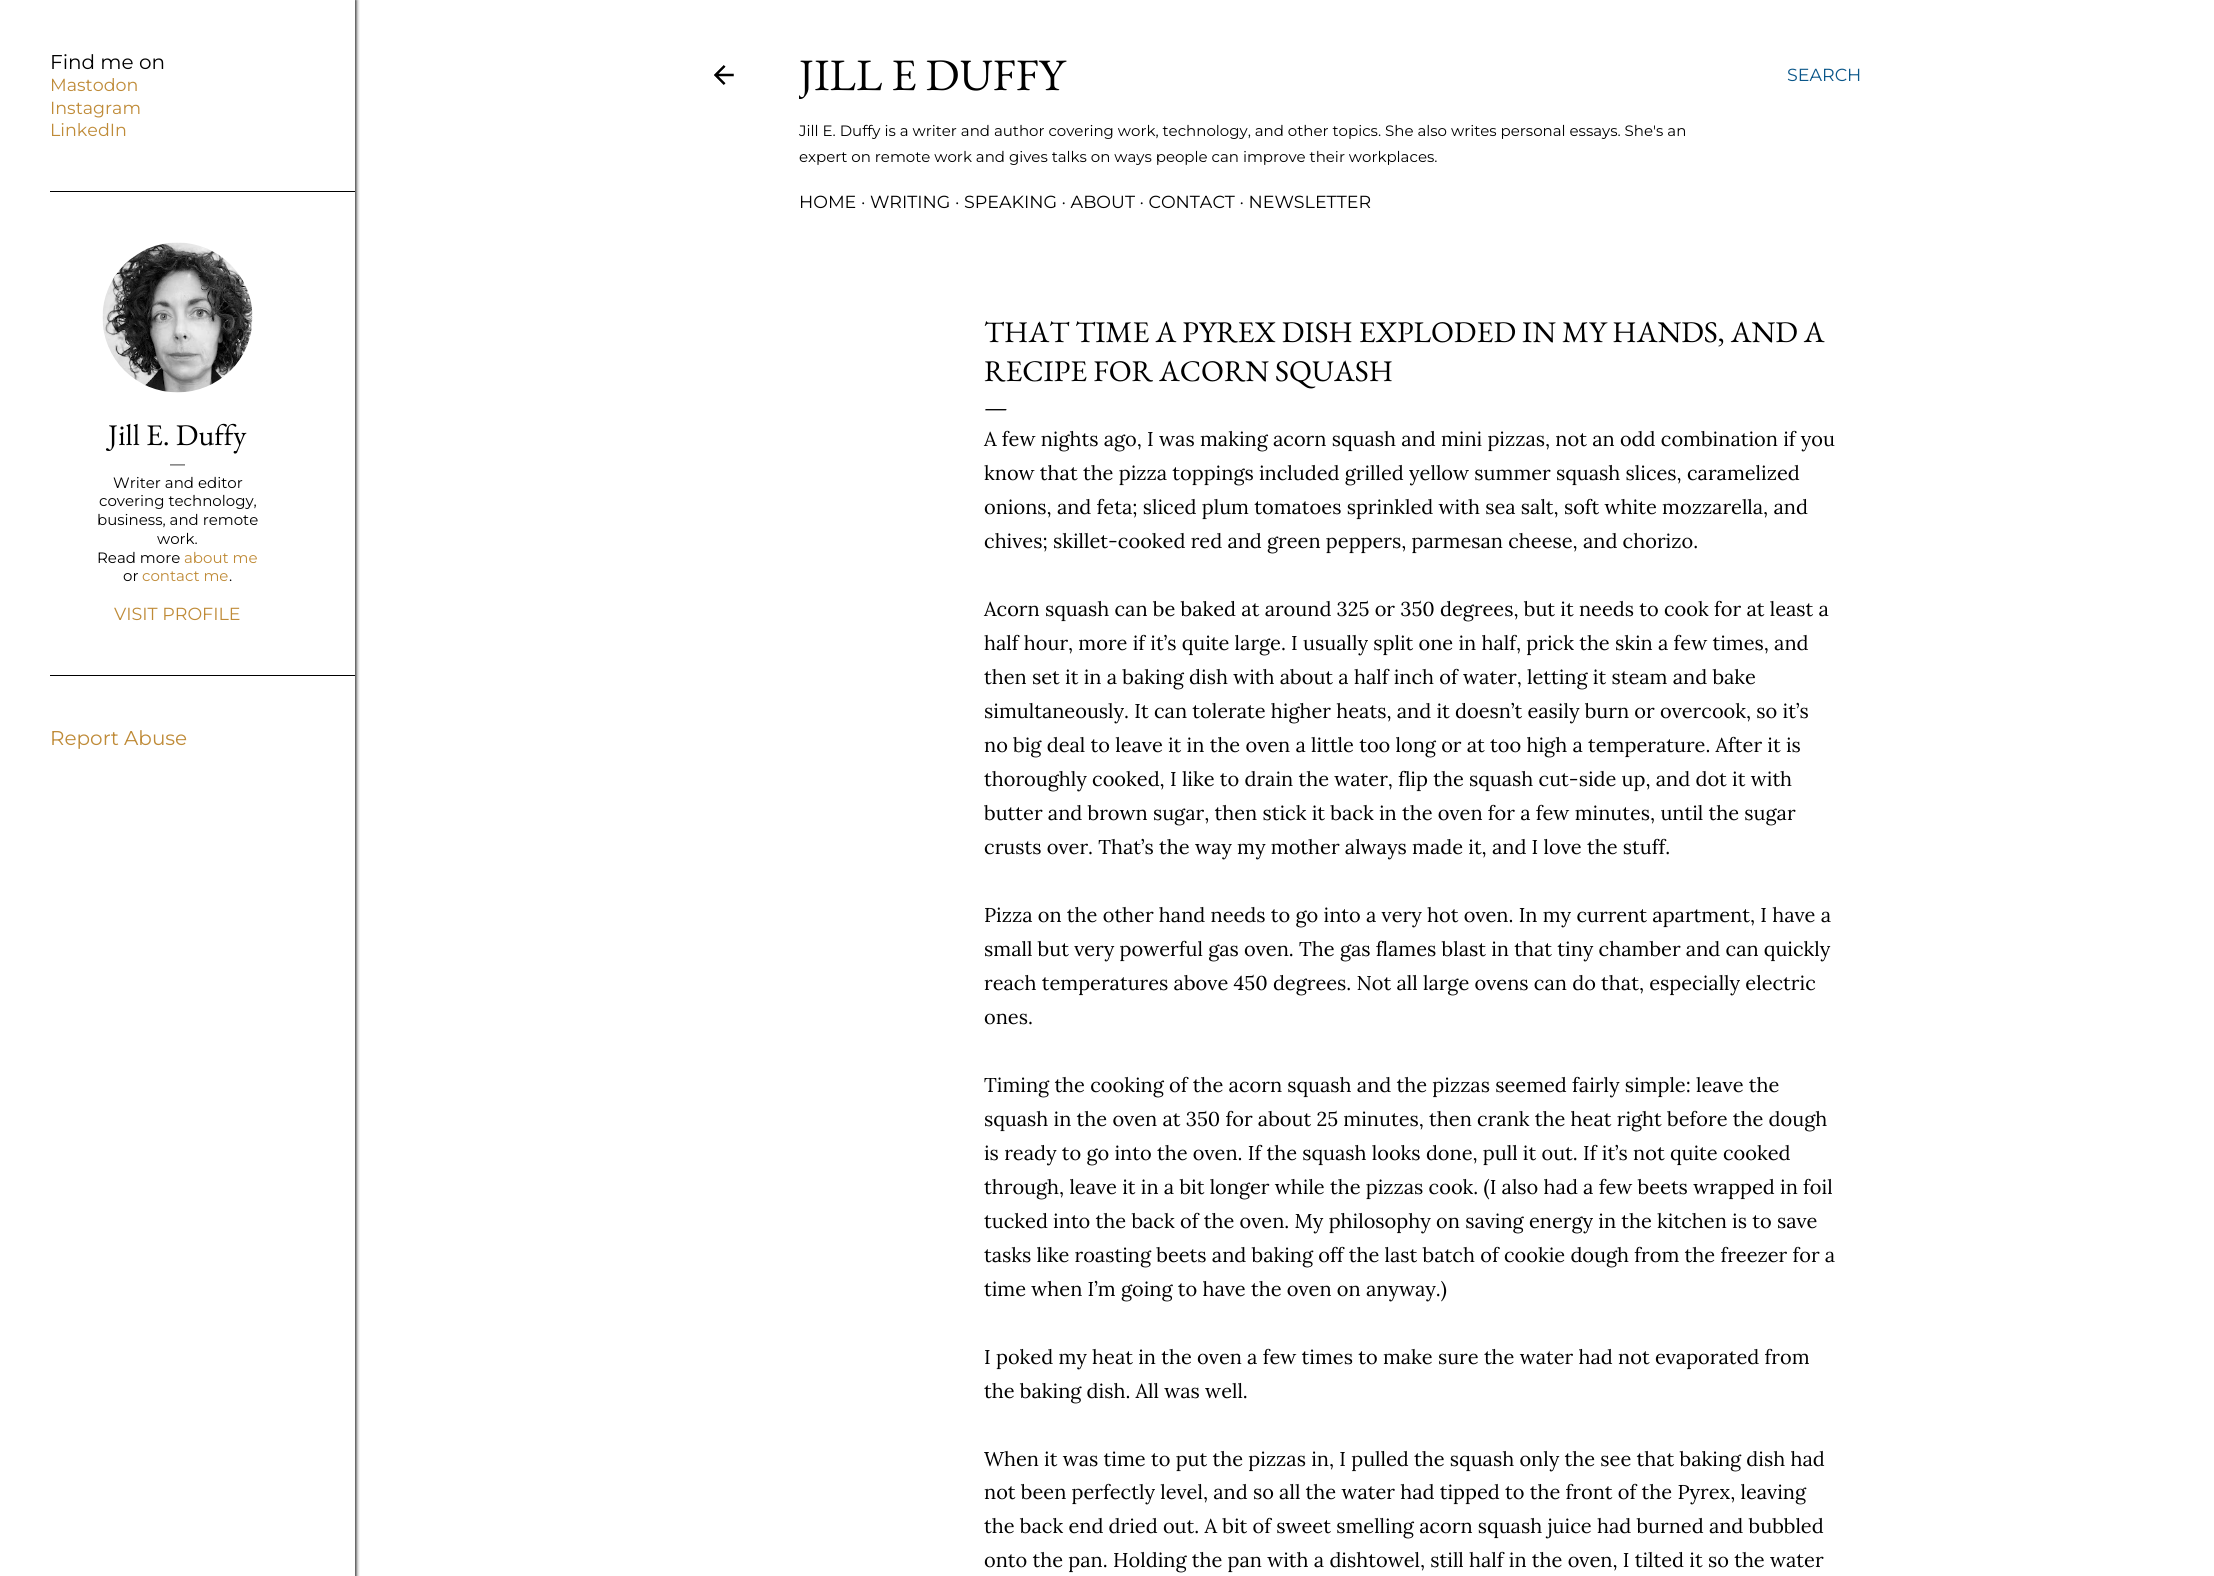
#include <cairo/cairo.h>
#include <math.h>
#include <stddef.h>


static void rounded_rect(cairo_t *cr, double x, double y, double w, double h, double r) {
  cairo_new_sub_path(cr);
  cairo_arc(cr, x + w - r, y + h - r, r, 0, M_PI / 2);
  cairo_arc(cr, x + r, y + h - r, r, M_PI / 2, M_PI);
  cairo_arc(cr, x + r, y + r, r, M_PI, 1.5 * M_PI);
  cairo_arc(cr, x + w - r, y + r, r, 1.5 * M_PI, 2 * M_PI);
  cairo_close_path(cr);
}

static void draw_shadow(cairo_t *cr, double x, double y, double w, double h, double r, double blur, double alpha) {
  cairo_push_group_with_content(cr, CAIRO_CONTENT_ALPHA);
  cairo_set_operator(cr, CAIRO_OPERATOR_SOURCE);
  for (int i = 15; i >= -15 && fmin(w, h) + blur * i / 3 > 0; i -= 2) {
    double e = blur * i / 6;
    cairo_set_source_rgba(cr, 0, 0, 0, alpha * erfc((i - 1) / 8.5) / 2);
    rounded_rect(cr, x - e, y - e, w + 2 * e, h + 2 * e, fmax(0, fmin(r + e + blur * .6, fmin(w, h) / 2 + e)));
    cairo_fill(cr);
  }
  cairo_pattern_t *soft = cairo_pop_group(cr);
  cairo_mask(cr, soft);
  cairo_pattern_destroy(soft);
}

static void draw_image(cairo_t *cr, const char *path, double x, double y, double w, double h) {
  cairo_surface_t *image = cairo_image_surface_create_from_png(path);
  cairo_save(cr);
  cairo_set_source_surface(cr, image, x, y);
  cairo_rectangle(cr, x, y, w, h);
  cairo_fill(cr);
  cairo_restore(cr);
  cairo_surface_destroy(image);
}

static void draw(cairo_t *cr) {
  cairo_set_source_rgb(cr, 1, 1, 1);
  cairo_paint(cr);
  cairo_save(cr);
  cairo_rectangle(cr, 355, 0, 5, 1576);
  cairo_clip(cr);
  cairo_set_source_rgb(cr, 0, 0, 0);
  draw_shadow(cr, 1, 0, 355, 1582, 0, 2, 1);
  cairo_restore(cr);
  cairo_set_source_rgb(cr, 0, 0, 0);
  cairo_rectangle(cr, 50, 191, 305, 1);
  cairo_fill(cr);
  draw_image(cr, "images/1.png", 102, 242, 151, 151);
  cairo_rectangle(cr, 50, 675, 305, 1);
  cairo_fill(cr);
  draw_image(cr, "images/2.png", 714, 65, 20, 20);
  cairo_select_font_face(cr, "Montserrat Thin", CAIRO_FONT_SLANT_NORMAL, CAIRO_FONT_WEIGHT_NORMAL);
  cairo_set_font_size(cr, 20);
  cairo_move_to(cr, 50, 69);
  cairo_show_text(cr, "Find me on");
  cairo_set_font_size(cr, 17.5);
  cairo_set_source_rgb(cr, 191 / 255.0, 139 / 255.0, 56 / 255.0);
  cairo_move_to(cr, 50, 91);
  cairo_show_text(cr, "Mastodon");
  cairo_move_to(cr, 50, 114);
  cairo_show_text(cr, "Instagram");
  cairo_move_to(cr, 50, 136);
  cairo_show_text(cr, "LinkedIn");
  cairo_select_font_face(cr, "EB Garamond", CAIRO_FONT_SLANT_NORMAL, CAIRO_FONT_WEIGHT_NORMAL);
  cairo_set_font_size(cr, 30);
  cairo_set_source_rgb(cr, 0, 0, 0);
  cairo_move_to(cr, 108, 445);
  cairo_show_text(cr, "Jill E. Duffy");
  cairo_select_font_face(cr, "Montserrat Thin", CAIRO_FONT_SLANT_NORMAL, CAIRO_FONT_WEIGHT_NORMAL);
  cairo_set_font_size(cr, 15);
  cairo_move_to(cr, 170, 469);
  cairo_show_text(cr, "—");
  cairo_move_to(cr, 113, 488);
  cairo_show_text(cr, "Writer and editor");
  cairo_move_to(cr, 99, 506);
  cairo_show_text(cr, "covering technology,");
  cairo_move_to(cr, 97, 525);
  cairo_show_text(cr, "business, and remote");
  cairo_move_to(cr, 157, 544);
  cairo_show_text(cr, "work.");
  cairo_move_to(cr, 97, 563);
  cairo_show_text(cr, "Read more");
  cairo_set_source_rgb(cr, 191 / 255.0, 139 / 255.0, 56 / 255.0);
  cairo_move_to(cr, 184, 563);
  cairo_show_text(cr, "about me");
  cairo_set_source_rgb(cr, 0, 0, 0);
  cairo_move_to(cr, 123, 581);
  cairo_show_text(cr, "or");
  cairo_set_source_rgb(cr, 191 / 255.0, 139 / 255.0, 56 / 255.0);
  cairo_move_to(cr, 142, 581);
  cairo_show_text(cr, "contact me");
  cairo_set_source_rgb(cr, 0, 0, 0);
  cairo_move_to(cr, 229, 581);
  cairo_show_text(cr, ".");
  cairo_set_font_size(cr, 17.5);
  cairo_set_source_rgb(cr, 191 / 255.0, 139 / 255.0, 56 / 255.0);
  cairo_move_to(cr, 114, 620);
  cairo_show_text(cr, "VISIT PROFILE");
  cairo_set_font_size(cr, 20);
  cairo_move_to(cr, 50, 745);
  cairo_show_text(cr, "Report Abuse");
  cairo_save(cr);
  cairo_rectangle(cr, 799, 45, 929, 175);
  cairo_clip(cr);
  cairo_select_font_face(cr, "EB Garamond", CAIRO_FONT_SLANT_NORMAL, CAIRO_FONT_WEIGHT_NORMAL);
  cairo_set_font_size(cr, 45);
  cairo_set_source_rgb(cr, 0, 0, 0);
  cairo_move_to(cr, 799, 90);
  cairo_show_text(cr, "JILL E DUFFY");
  cairo_restore(cr);
  cairo_set_font_size(cr, 15);
  cairo_set_source_rgb(cr, 0, 0, 0);
  cairo_move_to(cr, 799, 136);
  cairo_show_text(cr, "Jill E. Duffy is a writer and author covering work, technology, and other topics. She also writes personal essays. She's an");
  cairo_move_to(cr, 799, 162);
  cairo_show_text(cr, "expert on remote work and gives talks on ways people can improve their workplaces.");
  cairo_set_font_size(cr, 17.5);
  cairo_move_to(cr, 799, 208);
  cairo_show_text(cr, "HOME · WRITING · SPEAKING · ABOUT · CONTACT · NEWSLETTER");
  cairo_set_source_rgb(cr, 10 / 255.0, 86 / 255.0, 137 / 255.0);
  cairo_move_to(cr, 1787, 81);
  cairo_show_text(cr, "SEARCH");
  cairo_select_font_face(cr, "EB Garamond", CAIRO_FONT_SLANT_NORMAL, CAIRO_FONT_WEIGHT_NORMAL);
  cairo_set_font_size(cr, 30);
  cairo_set_source_rgb(cr, 0, 0, 0);
  cairo_move_to(cr, 984, 342);
  cairo_show_text(cr, "THAT TIME A PYREX DISH EXPLODED IN MY HANDS, AND A");
  cairo_move_to(cr, 984, 381);
  cairo_show_text(cr, "RECIPE FOR ACORN SQUASH");
  cairo_set_font_size(cr, 25);
  cairo_move_to(cr, 984, 415);
  cairo_show_text(cr, "—");
  cairo_select_font_face(cr, "Lora", CAIRO_FONT_SLANT_NORMAL, CAIRO_FONT_WEIGHT_NORMAL);
  cairo_set_font_size(cr, 20);
  cairo_move_to(cr, 984, 446);
  cairo_show_text(cr, "A few nights ago, I was making acorn squash and mini pizzas, not an odd combination if you");
  cairo_move_to(cr, 984, 480);
  cairo_show_text(cr, "know that the pizza toppings included grilled yellow summer squash slices, caramelized");
  cairo_move_to(cr, 984, 514);
  cairo_show_text(cr, "onions, and feta; sliced plum tomatoes sprinkled with sea salt, soft white mozzarella, and");
  cairo_move_to(cr, 984, 548);
  cairo_show_text(cr, "chives; skillet-cooked red and green peppers, parmesan cheese, and chorizo.");
  cairo_move_to(cr, 984, 616);
  cairo_show_text(cr, "Acorn squash can be baked at around 325 or 350 degrees, but it needs to cook for at least a");
  cairo_move_to(cr, 984, 650);
  cairo_show_text(cr, "half hour, more if it’s quite large. I usually split one in half, prick the skin a few times, and");
  cairo_move_to(cr, 984, 684);
  cairo_show_text(cr, "then set it in a baking dish with about a half inch of water, letting it steam and bake");
  cairo_move_to(cr, 984, 718);
  cairo_show_text(cr, "simultaneously. It can tolerate higher heats, and it doesn’t easily burn or overcook, so it’s");
  cairo_move_to(cr, 984, 752);
  cairo_show_text(cr, "no big deal to leave it in the oven a little too long or at too high a temperature. After it is");
  cairo_move_to(cr, 984, 786);
  cairo_show_text(cr, "thoroughly cooked, I like to drain the water, flip the squash cut-side up, and dot it with");
  cairo_move_to(cr, 984, 820);
  cairo_show_text(cr, "butter and brown sugar, then stick it back in the oven for a few minutes, until the sugar");
  cairo_move_to(cr, 984, 854);
  cairo_show_text(cr, "crusts over. That’s the way my mother always made it, and I love the stuff.");
  cairo_move_to(cr, 984, 922);
  cairo_show_text(cr, "Pizza on the other hand needs to go into a very hot oven. In my current apartment, I have a");
  cairo_move_to(cr, 984, 956);
  cairo_show_text(cr, "small but very powerful gas oven. The gas flames blast in that tiny chamber and can quickly");
  cairo_move_to(cr, 984, 990);
  cairo_show_text(cr, "reach temperatures above 450 degrees. Not all large ovens can do that, especially electric");
  cairo_move_to(cr, 984, 1024);
  cairo_show_text(cr, "ones.");
  cairo_move_to(cr, 984, 1092);
  cairo_show_text(cr, "Timing the cooking of the acorn squash and the pizzas seemed fairly simple: leave the");
  cairo_move_to(cr, 984, 1126);
  cairo_show_text(cr, "squash in the oven at 350 for about 25 minutes, then crank the heat right before the dough");
  cairo_move_to(cr, 984, 1160);
  cairo_show_text(cr, "is ready to go into the oven. If the squash looks done, pull it out. If it’s not quite cooked");
  cairo_move_to(cr, 984, 1194);
  cairo_show_text(cr, "through, leave it in a bit longer while the pizzas cook. (I also had a few beets wrapped in foil");
  cairo_move_to(cr, 984, 1228);
  cairo_show_text(cr, "tucked into the back of the oven. My philosophy on saving energy in the kitchen is to save");
  cairo_move_to(cr, 984, 1262);
  cairo_show_text(cr, "tasks like roasting beets and baking off the last batch of cookie dough from the freezer for a");
  cairo_move_to(cr, 984, 1296);
  cairo_show_text(cr, "time when I’m going to have the oven on anyway.)");
  cairo_move_to(cr, 984, 1364);
  cairo_show_text(cr, "I poked my heat in the oven a few times to make sure the water had not evaporated from");
  cairo_move_to(cr, 984, 1398);
  cairo_show_text(cr, "the baking dish. All was well.");
  cairo_move_to(cr, 984, 1466);
  cairo_show_text(cr, "When it was time to put the pizzas in, I pulled the squash only the see that baking dish had");
  cairo_move_to(cr, 984, 1499);
  cairo_show_text(cr, "not been perfectly level, and so all the water had tipped to the front of the Pyrex, leaving");
  cairo_move_to(cr, 984, 1533);
  cairo_show_text(cr, "the back end dried out. A bit of sweet smelling acorn squash juice had burned and bubbled");
  cairo_move_to(cr, 984, 1567);
  cairo_show_text(cr, "onto the pan. Holding the pan with a dishtowel, still half in the oven, I tilted it so the water");
}

int main(void) {
  cairo_surface_t *surface = cairo_image_surface_create(CAIRO_FORMAT_RGB24, 2214, 1576);
  cairo_t *cr = cairo_create(surface);
  cairo_font_options_t *options = cairo_font_options_create();
  cairo_font_options_set_hint_metrics(options, CAIRO_HINT_METRICS_OFF);
  cairo_font_options_set_hint_style(options, CAIRO_HINT_STYLE_NONE);
  cairo_set_font_options(cr, options);
  cairo_set_miter_limit(cr, 4);
  draw(cr);
  cairo_surface_write_to_png(surface, "out.png");
  cairo_font_options_destroy(options);
  cairo_destroy(cr);
  cairo_surface_destroy(surface);
  return 0;
}
